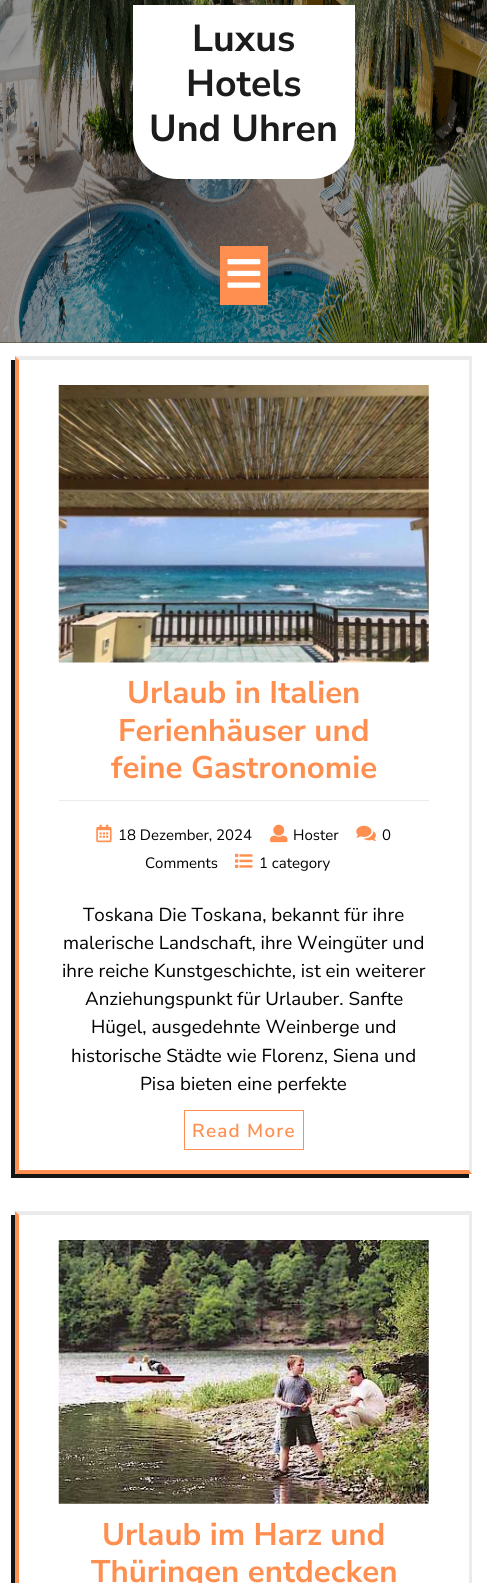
#include <cairo/cairo.h>
#include <math.h>
#include <stddef.h>


static void draw_spaced(cairo_t *cr, double x, double y, const char *s, double letter, double word) {
  cairo_move_to(cr, x, y);
  while (*s) {
    char ch[5] = {0};
    int n = 0;
    do ch[n++] = *s++; while ((*s & 0xC0) == 0x80);
    cairo_show_text(cr, ch);
    cairo_rel_move_to(cr, letter + word * (*ch == ' '), 0);
  }
}

static void draw_image(cairo_t *cr, const char *path, double x, double y, double w, double h) {
  cairo_surface_t *image = cairo_image_surface_create_from_png(path);
  cairo_save(cr);
  cairo_set_source_surface(cr, image, x, y);
  cairo_rectangle(cr, x, y, w, h);
  cairo_fill(cr);
  cairo_restore(cr);
  cairo_surface_destroy(image);
}

static void draw(cairo_t *cr) {
  cairo_set_source_rgb(cr, 1, 1, 1);
  cairo_paint(cr);
  cairo_set_source_rgb(cr, 72 / 255.0, 59 / 255.0, 33 / 255.0);
  cairo_rectangle(cr, 0, 342, 487, 1);
  cairo_fill(cr);
  draw_image(cr, "images/1.png", 0, 0, 487, 343);
  cairo_set_source_rgb(cr, 1, 1, 1);
  cairo_new_path(cr);
  cairo_move_to(cr, 133, 5);
  cairo_line_to(cr, 355, 5);
  cairo_line_to(cr, 355, 135);
  cairo_curve_to(cr, 355, 159.5, 335.5, 179, 311, 179);
  cairo_line_to(cr, 177, 179);
  cairo_curve_to(cr, 152.5, 179, 133, 159.5, 133, 135);
  cairo_close_path(cr);
  cairo_fill(cr);
  cairo_set_source_rgb(cr, 1, 143 / 255.0, 80 / 255.0);
  cairo_rectangle(cr, 220, 246, 48, 59);
  cairo_fill(cr);
  draw_image(cr, "images/2.png", 227, 259, 34, 29);
  cairo_set_source_rgb(cr, 21 / 255.0, 21 / 255.0, 21 / 255.0);
  cairo_new_path(cr);
  cairo_move_to(cr, 11, 360);
  cairo_line_to(cr, 11, 1178);
  cairo_line_to(cr, 469, 1178);
  cairo_line_to(cr, 469, 1174);
  cairo_line_to(cr, 15, 1174);
  cairo_line_to(cr, 15, 360);
  cairo_close_path(cr);
  cairo_fill(cr);
  cairo_set_source_rgb(cr, 235 / 255.0, 235 / 255.0, 235 / 255.0);
  cairo_new_path(cr);
  cairo_move_to(cr, 15, 356);
  cairo_line_to(cr, 472, 356);
  cairo_line_to(cr, 469, 360);
  cairo_line_to(cr, 19, 360);
  cairo_close_path(cr);
  cairo_fill(cr);
  cairo_new_path(cr);
  cairo_move_to(cr, 472, 356);
  cairo_line_to(cr, 472, 1174);
  cairo_line_to(cr, 469, 1170);
  cairo_line_to(cr, 469, 360);
  cairo_close_path(cr);
  cairo_fill(cr);
  cairo_set_source_rgb(cr, 1, 143 / 255.0, 80 / 255.0);
  cairo_new_path(cr);
  cairo_move_to(cr, 472, 1174);
  cairo_line_to(cr, 15, 1174);
  cairo_line_to(cr, 19, 1170);
  cairo_line_to(cr, 469, 1170);
  cairo_close_path(cr);
  cairo_fill(cr);
  cairo_new_path(cr);
  cairo_move_to(cr, 15, 1174);
  cairo_line_to(cr, 15, 356);
  cairo_line_to(cr, 19, 360);
  cairo_line_to(cr, 19, 1170);
  cairo_close_path(cr);
  cairo_fill(cr);
  draw_image(cr, "images/3.png", 58, 385, 371, 278);
  cairo_set_source_rgb(cr, 235 / 255.0, 235 / 255.0, 235 / 255.0);
  cairo_rectangle(cr, 59, 800, 370, 1);
  cairo_fill(cr);
  draw_image(cr, "images/4.png", 96, 824, 16, 19);
  draw_image(cr, "images/5.png", 270, 824, 18, 19);
  draw_image(cr, "images/6.png", 356, 825, 20, 17);
  draw_image(cr, "images/7.png", 235, 853, 18, 16);
  cairo_rectangle(cr, 184.5, 1110.5, 119, 39);
  cairo_set_source_rgb(cr, 1, 143 / 255.0, 80 / 255.0);
  cairo_set_line_width(cr, 1);
  cairo_stroke(cr);
  cairo_set_source_rgb(cr, 21 / 255.0, 21 / 255.0, 21 / 255.0);
  cairo_new_path(cr);
  cairo_move_to(cr, 11, 1215);
  cairo_line_to(cr, 11, 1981);
  cairo_line_to(cr, 469, 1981);
  cairo_line_to(cr, 469, 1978);
  cairo_line_to(cr, 15, 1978);
  cairo_line_to(cr, 15, 1215);
  cairo_close_path(cr);
  cairo_fill(cr);
  cairo_set_source_rgb(cr, 235 / 255.0, 235 / 255.0, 235 / 255.0);
  cairo_new_path(cr);
  cairo_move_to(cr, 15, 1211);
  cairo_line_to(cr, 472, 1211);
  cairo_line_to(cr, 469, 1215);
  cairo_line_to(cr, 19, 1215);
  cairo_close_path(cr);
  cairo_fill(cr);
  cairo_new_path(cr);
  cairo_move_to(cr, 472, 1211);
  cairo_line_to(cr, 472, 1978);
  cairo_line_to(cr, 469, 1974);
  cairo_line_to(cr, 469, 1215);
  cairo_close_path(cr);
  cairo_fill(cr);
  cairo_set_source_rgb(cr, 1, 143 / 255.0, 80 / 255.0);
  cairo_new_path(cr);
  cairo_move_to(cr, 15, 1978);
  cairo_line_to(cr, 15, 1211);
  cairo_line_to(cr, 19, 1215);
  cairo_line_to(cr, 19, 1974);
  cairo_close_path(cr);
  cairo_fill(cr);
  draw_image(cr, "images/8.png", 58, 1240, 371, 264);
  cairo_select_font_face(cr, "Nunito Sans", CAIRO_FONT_SLANT_NORMAL, CAIRO_FONT_WEIGHT_BOLD);
  cairo_set_font_size(cr, 37.5);
  cairo_set_source_rgb(cr, 28 / 255.0, 28 / 255.0, 28 / 255.0);
  cairo_move_to(cr, 192, 51);
  cairo_show_text(cr, "Luxus");
  cairo_move_to(cr, 186, 96);
  cairo_show_text(cr, "Hotels");
  cairo_move_to(cr, 149, 141);
  cairo_show_text(cr, "Und Uhren");
  cairo_set_font_size(cr, 31.25);
  cairo_set_source_rgb(cr, 1, 143 / 255.0, 80 / 255.0);
  cairo_move_to(cr, 127, 703);
  cairo_show_text(cr, "Urlaub in Italien");
  cairo_move_to(cr, 118, 741);
  cairo_show_text(cr, "Ferienhäuser und");
  cairo_move_to(cr, 111, 778);
  cairo_show_text(cr, "feine Gastronomie");
  cairo_select_font_face(cr, "Nunito Sans", CAIRO_FONT_SLANT_NORMAL, CAIRO_FONT_WEIGHT_NORMAL);
  cairo_set_font_size(cr, 15);
  cairo_set_source_rgb(cr, 0, 0, 0);
  cairo_move_to(cr, 118, 840);
  cairo_show_text(cr, "18 Dezember, 2024");
  cairo_move_to(cr, 293, 840);
  cairo_show_text(cr, "Hoster");
  cairo_move_to(cr, 382, 840);
  cairo_show_text(cr, "0");
  cairo_move_to(cr, 145, 868);
  cairo_show_text(cr, "Comments");
  cairo_move_to(cr, 259, 868);
  cairo_show_text(cr, "1 category");
  cairo_set_font_size(cr, 18.75);
  cairo_move_to(cr, 83, 921);
  cairo_show_text(cr, "Toskana Die Toskana, bekannt für ihre");
  cairo_move_to(cr, 63, 949);
  cairo_show_text(cr, "malerische Landschaft, ihre Weingüter und");
  cairo_move_to(cr, 62, 977);
  cairo_show_text(cr, "ihre reiche Kunstgeschichte, ist ein weiterer");
  cairo_move_to(cr, 85, 1005);
  cairo_show_text(cr, "Anziehungspunkt für Urlauber. Sanfte");
  cairo_move_to(cr, 91, 1033);
  cairo_show_text(cr, "Hügel, ausgedehnte Weinberge und");
  cairo_move_to(cr, 71, 1062);
  cairo_show_text(cr, "historische Städte wie Florenz, Siena und");
  cairo_move_to(cr, 140, 1090);
  cairo_show_text(cr, "Pisa bieten eine perfekte");
  cairo_select_font_face(cr, "Nunito Sans SemiBold", CAIRO_FONT_SLANT_NORMAL, CAIRO_FONT_WEIGHT_NORMAL);
  cairo_set_source_rgb(cr, 1, 143 / 255.0, 80 / 255.0);
  draw_spaced(cr, 192, 1137, "Read More", 1.25, 0);
  cairo_select_font_face(cr, "Nunito Sans", CAIRO_FONT_SLANT_NORMAL, CAIRO_FONT_WEIGHT_BOLD);
  cairo_set_font_size(cr, 31.25);
  cairo_move_to(cr, 102, 1545);
  cairo_show_text(cr, "Urlaub im Harz und");
  cairo_move_to(cr, 91, 1582);
  cairo_show_text(cr, "Thüringen entdecken");
}

int main(void) {
  cairo_surface_t *surface = cairo_image_surface_create(CAIRO_FORMAT_RGB24, 487, 1583);
  cairo_t *cr = cairo_create(surface);
  cairo_font_options_t *options = cairo_font_options_create();
  cairo_font_options_set_hint_metrics(options, CAIRO_HINT_METRICS_OFF);
  cairo_font_options_set_hint_style(options, CAIRO_HINT_STYLE_NONE);
  cairo_set_font_options(cr, options);
  cairo_set_miter_limit(cr, 4);
  draw(cr);
  cairo_surface_write_to_png(surface, "out.png");
  cairo_font_options_destroy(options);
  cairo_destroy(cr);
  cairo_surface_destroy(surface);
  return 0;
}
